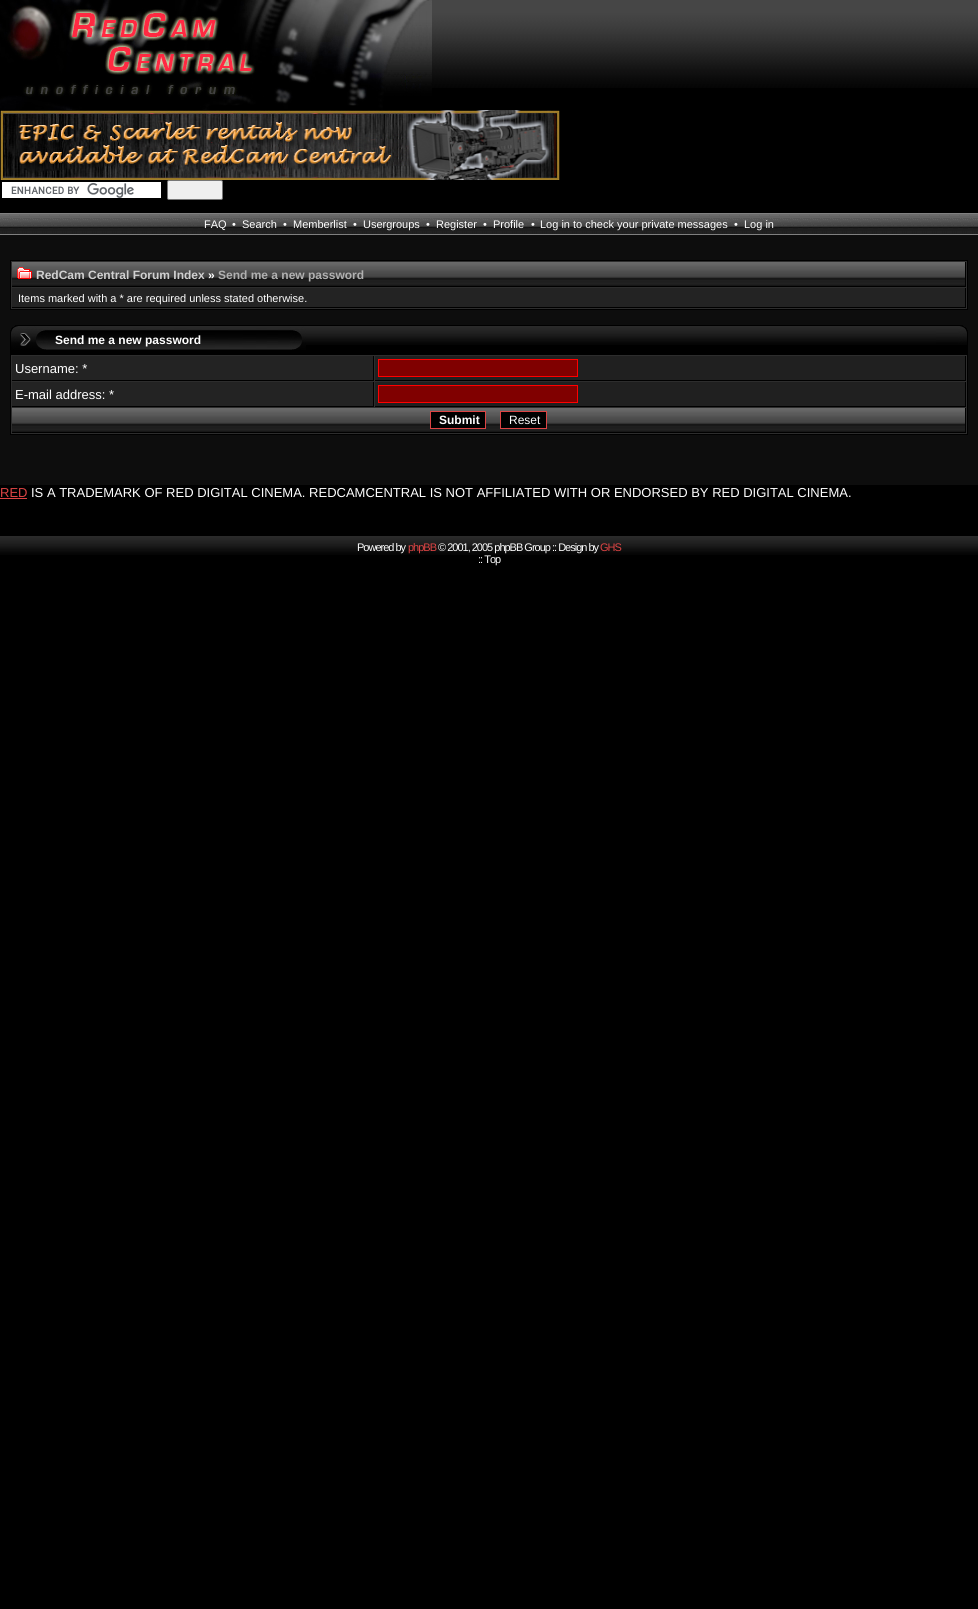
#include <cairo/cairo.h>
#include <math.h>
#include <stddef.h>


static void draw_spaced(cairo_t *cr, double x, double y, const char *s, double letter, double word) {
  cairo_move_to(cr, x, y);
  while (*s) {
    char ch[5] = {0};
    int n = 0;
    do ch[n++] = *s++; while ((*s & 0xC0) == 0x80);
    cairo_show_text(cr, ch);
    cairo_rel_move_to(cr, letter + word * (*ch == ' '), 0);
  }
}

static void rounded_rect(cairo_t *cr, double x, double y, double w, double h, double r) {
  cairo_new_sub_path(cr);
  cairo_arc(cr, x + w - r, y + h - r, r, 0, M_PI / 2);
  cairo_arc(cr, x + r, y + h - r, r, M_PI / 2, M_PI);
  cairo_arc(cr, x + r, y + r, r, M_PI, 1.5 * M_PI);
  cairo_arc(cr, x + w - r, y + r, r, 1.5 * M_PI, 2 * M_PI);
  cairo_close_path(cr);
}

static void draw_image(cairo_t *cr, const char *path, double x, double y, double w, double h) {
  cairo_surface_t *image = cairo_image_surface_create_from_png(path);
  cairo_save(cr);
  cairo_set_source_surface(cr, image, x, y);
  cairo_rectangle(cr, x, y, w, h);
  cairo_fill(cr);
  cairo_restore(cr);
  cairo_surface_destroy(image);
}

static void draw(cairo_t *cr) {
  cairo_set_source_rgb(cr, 0, 0, 0);
  cairo_paint(cr);
  cairo_set_source_rgb(cr, 13 / 255.0, 13 / 255.0, 13 / 255.0);
  cairo_rectangle(cr, 0, 235, 978, 250);
  cairo_fill(cr);
  draw_image(cr, "images/1.png", 432, 0, 546, 88);
  draw_image(cr, "images/2.png", 0, 0, 432, 110);
  draw_image(cr, "images/3.png", 0, 110, 560, 70);
  cairo_set_source_rgb(cr, 1, 1, 1);
  cairo_rectangle(cr, 2, 182, 159, 16);
  cairo_fill(cr);
  draw_image(cr, "images/4.png", 11, 183, 123, 15);
  cairo_set_source_rgb(cr, 239 / 255.0, 239 / 255.0, 239 / 255.0);
  rounded_rect(cr, 167.5, 180.5, 55, 19, 1.5);
  cairo_fill_preserve(cr);
  cairo_set_source_rgb(cr, 118 / 255.0, 118 / 255.0, 118 / 255.0);
  cairo_set_line_width(cr, 1);
  cairo_stroke(cr);
  draw_image(cr, "images/5.png", 0, 214, 978, 20);
  cairo_set_source_rgb(cr, 128 / 255.0, 128 / 255.0, 128 / 255.0);
  cairo_rectangle(cr, 0, 213, 978, 1);
  cairo_fill(cr);
  cairo_rectangle(cr, 0, 234, 978, 1);
  cairo_fill(cr);
  cairo_set_source_rgb(cr, 45 / 255.0, 45 / 255.0, 45 / 255.0);
  cairo_rectangle(cr, 10.5, 260.5, 957, 49);
  cairo_fill_preserve(cr);
  cairo_set_source_rgb(cr, 0, 0, 0);
  cairo_stroke(cr);
  draw_image(cr, "images/6.png", 12, 262, 953, 24);
  cairo_rectangle(cr, 965, 262, 1, 25);
  cairo_fill(cr);
  cairo_rectangle(cr, 12, 286, 954, 1);
  cairo_fill(cr);
  draw_image(cr, "images/7.png", 17, 267, 15, 12);
  cairo_set_source_rgb(cr, 35 / 255.0, 35 / 255.0, 35 / 255.0);
  cairo_rectangle(cr, 12, 288, 953, 19);
  cairo_fill(cr);
  cairo_set_source_rgb(cr, 0, 0, 0);
  cairo_rectangle(cr, 965, 288, 1, 20);
  cairo_fill(cr);
  cairo_rectangle(cr, 12, 307, 954, 1);
  cairo_fill(cr);
  cairo_rectangle(cr, 10, 350, 41, 4);
  cairo_fill(cr);
  draw_image(cr, "images/8.png", 10, 325, 41, 25);
  cairo_rectangle(cr, 51, 325, 876, 29);
  cairo_fill(cr);
  draw_image(cr, "images/9.png", 51, 326, 214, 24);
  draw_image(cr, "images/10.png", 265, 326, 41, 24);
  draw_image(cr, "images/11.png", 306, 326, 621, 19);
  cairo_rectangle(cr, 927, 345, 41, 9);
  cairo_fill(cr);
  draw_image(cr, "images/12.png", 927, 325, 41, 20);
  cairo_set_source_rgb(cr, 45 / 255.0, 45 / 255.0, 45 / 255.0);
  cairo_rectangle(cr, 10.5, 354.5, 957, 80);
  cairo_fill_preserve(cr);
  cairo_set_source_rgb(cr, 0, 0, 0);
  cairo_stroke(cr);
  cairo_set_source_rgb(cr, 35 / 255.0, 35 / 255.0, 35 / 255.0);
  cairo_rectangle(cr, 12, 356, 361, 24);
  cairo_fill(cr);
  cairo_set_source_rgb(cr, 0, 0, 0);
  cairo_rectangle(cr, 373, 356, 1, 25);
  cairo_fill(cr);
  cairo_rectangle(cr, 12, 380, 362, 1);
  cairo_fill(cr);
  cairo_set_source_rgb(cr, 32 / 255.0, 32 / 255.0, 32 / 255.0);
  cairo_rectangle(cr, 375, 356, 590, 24);
  cairo_fill(cr);
  cairo_set_source_rgb(cr, 0, 0, 0);
  cairo_rectangle(cr, 965, 356, 1, 25);
  cairo_fill(cr);
  cairo_rectangle(cr, 375, 380, 591, 1);
  cairo_fill(cr);
  cairo_set_source_rgb(cr, 128 / 255.0, 0, 0);
  cairo_rectangle(cr, 378.5, 359.5, 199, 17);
  cairo_fill_preserve(cr);
  cairo_set_source_rgb(cr, 1, 0, 0);
  cairo_stroke(cr);
  cairo_set_source_rgb(cr, 35 / 255.0, 35 / 255.0, 35 / 255.0);
  cairo_rectangle(cr, 12, 382, 361, 24);
  cairo_fill(cr);
  cairo_set_source_rgb(cr, 0, 0, 0);
  cairo_rectangle(cr, 373, 382, 1, 25);
  cairo_fill(cr);
  cairo_rectangle(cr, 12, 406, 362, 1);
  cairo_fill(cr);
  cairo_set_source_rgb(cr, 32 / 255.0, 32 / 255.0, 32 / 255.0);
  cairo_rectangle(cr, 375, 382, 590, 24);
  cairo_fill(cr);
  cairo_set_source_rgb(cr, 0, 0, 0);
  cairo_rectangle(cr, 965, 382, 1, 25);
  cairo_fill(cr);
  cairo_rectangle(cr, 375, 406, 591, 1);
  cairo_fill(cr);
  cairo_set_source_rgb(cr, 128 / 255.0, 0, 0);
  cairo_rectangle(cr, 378.5, 385.5, 199, 17);
  cairo_fill_preserve(cr);
  cairo_set_source_rgb(cr, 1, 0, 0);
  cairo_stroke(cr);
  draw_image(cr, "images/6.png", 12, 408, 953, 24);
  cairo_set_source_rgb(cr, 0, 0, 0);
  cairo_rectangle(cr, 965, 408, 1, 25);
  cairo_fill(cr);
  cairo_rectangle(cr, 12, 432, 954, 1);
  cairo_fill(cr);
  cairo_rectangle(cr, 430.5, 411.5, 55, 17);
  cairo_fill_preserve(cr);
  cairo_set_source_rgb(cr, 221 / 255.0, 68 / 255.0, 68 / 255.0);
  cairo_stroke(cr);
  cairo_set_source_rgb(cr, 0, 0, 0);
  cairo_rectangle(cr, 500.5, 411.5, 46, 17);
  cairo_fill_preserve(cr);
  cairo_set_source_rgb(cr, 221 / 255.0, 68 / 255.0, 68 / 255.0);
  cairo_stroke(cr);
  cairo_rectangle(cr, 0, 498, 27, 1);
  cairo_fill(cr);
  draw_image(cr, "images/13.png", 0, 536, 978, 19);
  cairo_select_font_face(cr, "Liberation Sans", CAIRO_FONT_SLANT_NORMAL, CAIRO_FONT_WEIGHT_NORMAL);
  cairo_set_font_size(cr, 11);
  cairo_set_source_rgb(cr, 1, 1, 1);
  cairo_move_to(cr, 204, 228);
  cairo_show_text(cr, "FAQ");
  cairo_move_to(cr, 232, 228);
  cairo_show_text(cr, "•");
  cairo_move_to(cr, 242, 228);
  cairo_show_text(cr, "Search");
  cairo_move_to(cr, 283, 228);
  cairo_show_text(cr, "•");
  cairo_move_to(cr, 293, 228);
  cairo_show_text(cr, "Memberlist");
  cairo_move_to(cr, 353, 228);
  cairo_show_text(cr, "•");
  cairo_move_to(cr, 363, 228);
  cairo_show_text(cr, "Usergroups");
  cairo_move_to(cr, 426, 228);
  cairo_show_text(cr, "•");
  cairo_move_to(cr, 436, 228);
  cairo_show_text(cr, "Register");
  cairo_move_to(cr, 483, 228);
  cairo_show_text(cr, "•");
  cairo_move_to(cr, 493, 228);
  cairo_show_text(cr, "Profile");
  cairo_move_to(cr, 531, 228);
  cairo_show_text(cr, "•");
  cairo_move_to(cr, 540, 228);
  cairo_show_text(cr, "Log in to check your private messages");
  cairo_move_to(cr, 734, 228);
  cairo_show_text(cr, "•");
  cairo_move_to(cr, 744, 228);
  cairo_show_text(cr, "Log in");
  cairo_select_font_face(cr, "Liberation Sans", CAIRO_FONT_SLANT_NORMAL, CAIRO_FONT_WEIGHT_BOLD);
  cairo_set_font_size(cr, 12);
  cairo_set_source_rgb(cr, 208 / 255.0, 208 / 255.0, 208 / 255.0);
  cairo_move_to(cr, 36, 279);
  cairo_show_text(cr, "RedCam Central Forum Index");
  cairo_set_source_rgb(cr, 1, 1, 1);
  cairo_move_to(cr, 208, 279);
  cairo_show_text(cr, "»");
  cairo_set_source_rgb(cr, 176 / 255.0, 176 / 255.0, 176 / 255.0);
  cairo_move_to(cr, 218, 279);
  cairo_show_text(cr, "Send me a new password");
  cairo_select_font_face(cr, "Liberation Sans", CAIRO_FONT_SLANT_NORMAL, CAIRO_FONT_WEIGHT_NORMAL);
  cairo_set_font_size(cr, 11);
  cairo_set_source_rgb(cr, 1, 1, 1);
  cairo_move_to(cr, 18, 302);
  cairo_show_text(cr, "Items marked with a * are required unless stated otherwise.");
  cairo_select_font_face(cr, "Liberation Sans", CAIRO_FONT_SLANT_NORMAL, CAIRO_FONT_WEIGHT_BOLD);
  cairo_set_font_size(cr, 12);
  cairo_move_to(cr, 55, 344);
  cairo_show_text(cr, "Send me a new password");
  cairo_select_font_face(cr, "Liberation Sans", CAIRO_FONT_SLANT_NORMAL, CAIRO_FONT_WEIGHT_NORMAL);
  cairo_set_font_size(cr, 13);
  cairo_move_to(cr, 15, 373);
  cairo_show_text(cr, "Username: *");
  cairo_move_to(cr, 15, 399);
  cairo_show_text(cr, "E-mail address: *");
  cairo_select_font_face(cr, "Liberation Sans", CAIRO_FONT_SLANT_NORMAL, CAIRO_FONT_WEIGHT_BOLD);
  cairo_set_font_size(cr, 12);
  cairo_move_to(cr, 439, 424);
  cairo_show_text(cr, "Submit");
  cairo_select_font_face(cr, "Liberation Sans", CAIRO_FONT_SLANT_NORMAL, CAIRO_FONT_WEIGHT_NORMAL);
  cairo_move_to(cr, 509, 424);
  cairo_show_text(cr, "Reset");
  cairo_set_font_size(cr, 13);
  cairo_set_source_rgb(cr, 221 / 255.0, 68 / 255.0, 68 / 255.0);
  cairo_move_to(cr, 0, 497);
  cairo_show_text(cr, "RED");
  cairo_set_source_rgb(cr, 1, 1, 1);
  cairo_move_to(cr, 31, 497);
  cairo_show_text(cr, "IS A TRADEMARK OF RED DIGITAL CINEMA. REDCAMCENTRAL IS NOT AFFILIATED WITH OR ENDORSED BY RED DIGITAL CINEMA.");
  cairo_set_font_size(cr, 11);
  draw_spaced(cr, 357, 551, "Powered by", -1, 0);
  cairo_set_source_rgb(cr, 221 / 255.0, 68 / 255.0, 68 / 255.0);
  draw_spaced(cr, 408, 551, "phpBB", -1, 0);
  cairo_set_source_rgb(cr, 1, 1, 1);
  draw_spaced(cr, 438, 551, "© 2001, 2005 phpBB Group :: Design by", -1, 0);
  cairo_set_source_rgb(cr, 221 / 255.0, 68 / 255.0, 68 / 255.0);
  draw_spaced(cr, 600, 551, "GHS", -1, 0);
  cairo_set_source_rgb(cr, 1, 1, 1);
  draw_spaced(cr, 478, 563, ":: Top", -1, 0);
}

int main(void) {
  cairo_surface_t *surface = cairo_image_surface_create(CAIRO_FORMAT_RGB24, 978, 1609);
  cairo_t *cr = cairo_create(surface);
  cairo_font_options_t *options = cairo_font_options_create();
  cairo_font_options_set_hint_metrics(options, CAIRO_HINT_METRICS_OFF);
  cairo_font_options_set_hint_style(options, CAIRO_HINT_STYLE_NONE);
  cairo_set_font_options(cr, options);
  cairo_set_miter_limit(cr, 4);
  draw(cr);
  cairo_surface_write_to_png(surface, "out.png");
  cairo_font_options_destroy(options);
  cairo_destroy(cr);
  cairo_surface_destroy(surface);
  return 0;
}
